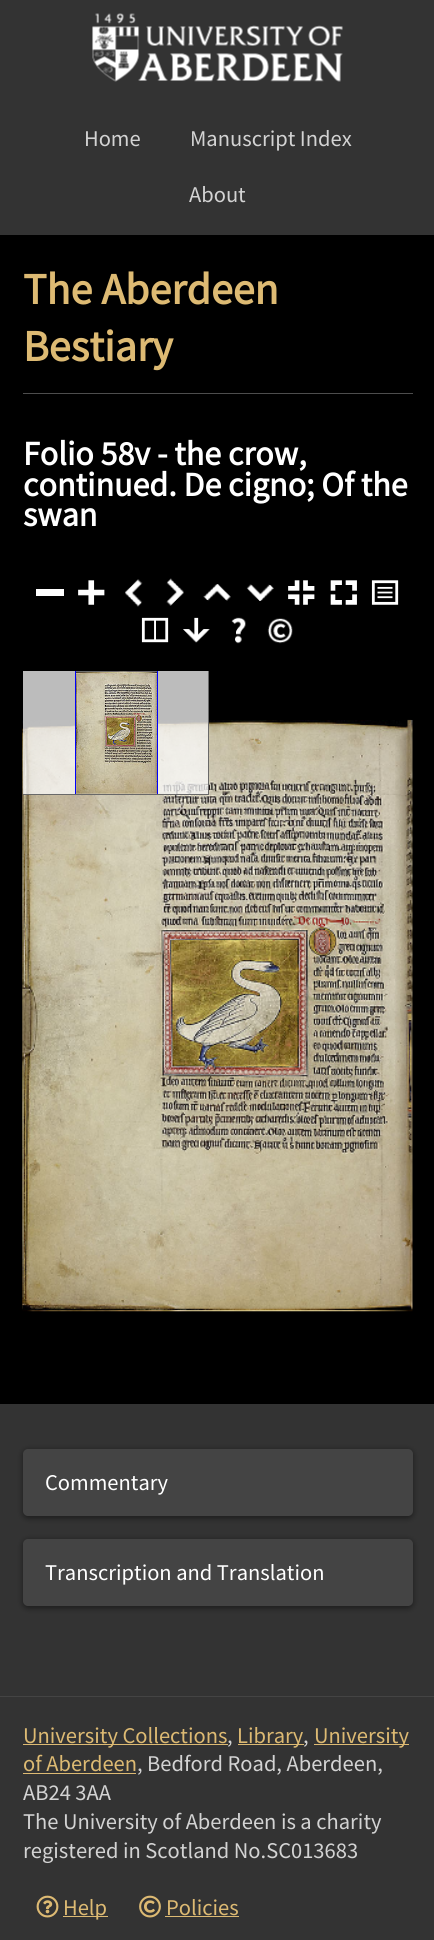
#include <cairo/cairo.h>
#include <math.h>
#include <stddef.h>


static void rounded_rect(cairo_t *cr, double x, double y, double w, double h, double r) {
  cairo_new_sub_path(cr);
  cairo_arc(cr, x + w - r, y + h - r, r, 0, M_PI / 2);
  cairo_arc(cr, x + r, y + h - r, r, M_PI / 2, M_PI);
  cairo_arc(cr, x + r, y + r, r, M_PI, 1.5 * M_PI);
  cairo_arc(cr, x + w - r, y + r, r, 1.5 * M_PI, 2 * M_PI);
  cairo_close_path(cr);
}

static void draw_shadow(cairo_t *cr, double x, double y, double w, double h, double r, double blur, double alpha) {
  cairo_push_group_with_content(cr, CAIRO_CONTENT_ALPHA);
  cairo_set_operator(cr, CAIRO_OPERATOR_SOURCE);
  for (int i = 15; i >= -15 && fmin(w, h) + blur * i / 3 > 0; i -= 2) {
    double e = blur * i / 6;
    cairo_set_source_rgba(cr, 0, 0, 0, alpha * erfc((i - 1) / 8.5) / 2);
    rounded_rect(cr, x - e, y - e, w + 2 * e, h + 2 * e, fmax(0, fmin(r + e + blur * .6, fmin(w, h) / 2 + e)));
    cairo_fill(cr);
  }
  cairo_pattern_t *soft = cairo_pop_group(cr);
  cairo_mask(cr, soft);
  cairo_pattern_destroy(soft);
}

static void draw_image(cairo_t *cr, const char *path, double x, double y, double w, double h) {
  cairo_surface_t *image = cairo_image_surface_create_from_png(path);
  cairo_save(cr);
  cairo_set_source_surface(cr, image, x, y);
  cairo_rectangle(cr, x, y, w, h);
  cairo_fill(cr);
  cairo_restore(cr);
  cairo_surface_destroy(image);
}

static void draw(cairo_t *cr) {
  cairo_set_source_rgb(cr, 51 / 255.0, 51 / 255.0, 51 / 255.0);
  cairo_paint(cr);
  cairo_set_source_rgb(cr, 0, 0, 0);
  cairo_rectangle(cr, 0, 235, 434, 1169);
  cairo_fill(cr);
  cairo_set_source_rgb(cr, 0, 0, 0);
  draw_shadow(cr, 13, 13, 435, 235, 0, 12.5, 0.4);
  cairo_set_source_rgb(cr, 51 / 255.0, 51 / 255.0, 51 / 255.0);
  cairo_rectangle(cr, 0, 0, 434, 235);
  cairo_fill(cr);
  draw_image(cr, "images/1.png", 92, 13, 251, 69);
  cairo_set_source_rgb(cr, 77 / 255.0, 77 / 255.0, 77 / 255.0);
  cairo_rectangle(cr, 23, 393, 390, 1);
  cairo_fill(cr);
  cairo_set_source_rgb(cr, 1, 1, 1);
  cairo_rectangle(cr, 36, 589, 28, 7);
  cairo_fill(cr);
  draw_image(cr, "images/2.png", 78, 580, 27, 25);
  draw_image(cr, "images/3.png", 125, 579, 18, 28);
  draw_image(cr, "images/4.png", 166, 578, 18, 28);
  draw_image(cr, "images/5.png", 203, 584, 28, 17);
  draw_image(cr, "images/6.png", 246, 584, 28, 17);
  draw_image(cr, "images/7.png", 288, 580, 27, 25);
  draw_image(cr, "images/8.png", 330, 580, 27, 25);
  draw_image(cr, "images/9.png", 371, 580, 28, 25);
  draw_image(cr, "images/10.png", 141, 617, 28, 26);
  draw_image(cr, "images/11.png", 183, 617, 27, 26);
  draw_image(cr, "images/12.png", 231, 617, 15, 27);
  draw_image(cr, "images/13.png", 267, 618, 26, 26);
  draw_image(cr, "images/16.png", 22, 720, 391, 592);
  draw_image(cr, "images/15.png", 22, 719, 390, 592);
  cairo_save(cr);
  cairo_rectangle(cr, 23, 671, 390, 688);
  cairo_clip(cr);
  cairo_rectangle(cr, 21.5, 670.5, 187, 124);
  cairo_set_source_rgb(cr, 105 / 255.0, 105 / 255.0, 105 / 255.0);
  cairo_set_line_width(cr, 1);
  cairo_stroke(cr);
  cairo_restore(cr);
  cairo_set_source_rgba(cr, 251 / 255.0, 250 / 255.0, 250 / 255.0, 0.75);
  cairo_rectangle(cr, 23, 671, 185, 123);
  cairo_fill(cr);
  draw_image(cr, "images/14.png", 76, 671, 81, 123);
  cairo_save(cr);
  cairo_rectangle(cr, 23, 671, 185, 123);
  cairo_clip(cr);
  cairo_rectangle(cr, 75.5, 660.5, 82, 144);
  cairo_set_source_rgb(cr, 0, 0, 1);
  cairo_set_line_width(cr, 1);
  cairo_stroke(cr);
  cairo_restore(cr);
  cairo_set_source_rgb(cr, 0, 0, 0);
  draw_shadow(cr, 23, 1450, 390, 68, 5, 3, 0.47);
  cairo_set_source_rgb(cr, 68 / 255.0, 68 / 255.0, 68 / 255.0);
  rounded_rect(cr, 23, 1449, 390, 67, 5);
  cairo_fill(cr);
  cairo_set_source_rgb(cr, 0, 0, 0);
  draw_shadow(cr, 23, 1540, 390, 68, 5, 3, 0.47);
  cairo_set_source_rgb(cr, 68 / 255.0, 68 / 255.0, 68 / 255.0);
  rounded_rect(cr, 23, 1539, 390, 67, 5);
  cairo_fill(cr);
  cairo_rectangle(cr, 0, 1696, 434, 1);
  cairo_fill(cr);
  cairo_set_source_rgb(cr, 221 / 255.0, 186 / 255.0, 115 / 255.0);
  cairo_rectangle(cr, 23, 1744, 205, 1);
  cairo_fill(cr);
  cairo_rectangle(cr, 238, 1744, 66, 1);
  cairo_fill(cr);
  cairo_rectangle(cr, 314, 1744, 95, 1);
  cairo_fill(cr);
  cairo_rectangle(cr, 23, 1773, 113, 1);
  cairo_fill(cr);
  draw_image(cr, "images/17.png", 36, 1895, 23, 23);
  cairo_rectangle(cr, 63, 1916, 45, 1);
  cairo_fill(cr);
  draw_image(cr, "images/18.png", 139, 1895, 22, 23);
  cairo_rectangle(cr, 165, 1916, 74, 1);
  cairo_fill(cr);
  cairo_select_font_face(cr, "Source Sans Pro", CAIRO_FONT_SLANT_NORMAL, CAIRO_FONT_WEIGHT_NORMAL);
  cairo_set_font_size(cr, 22.5);
  cairo_set_source_rgb(cr, 211 / 255.0, 211 / 255.0, 211 / 255.0);
  cairo_move_to(cr, 84, 146);
  cairo_show_text(cr, "Home");
  cairo_move_to(cr, 190, 146);
  cairo_show_text(cr, "Manuscript Index");
  cairo_move_to(cr, 189, 202);
  cairo_show_text(cr, "About");
  cairo_select_font_face(cr, "Source Sans Pro", CAIRO_FONT_SLANT_NORMAL, CAIRO_FONT_WEIGHT_BOLD);
  cairo_set_font_size(cr, 44);
  cairo_set_source_rgb(cr, 221 / 255.0, 186 / 255.0, 115 / 255.0);
  cairo_move_to(cr, 23, 304);
  cairo_show_text(cr, "The Aberdeen");
  cairo_move_to(cr, 23, 361);
  cairo_show_text(cr, "Bestiary");
  cairo_set_font_size(cr, 34);
  cairo_set_source_rgb(cr, 1, 1, 1);
  cairo_move_to(cr, 23, 465);
  cairo_show_text(cr, "Folio 58v - the crow,");
  cairo_move_to(cr, 23, 496);
  cairo_show_text(cr, "continued. De cigno; Of the");
  cairo_move_to(cr, 23, 526);
  cairo_show_text(cr, "swan");
  cairo_select_font_face(cr, "Source Sans Pro", CAIRO_FONT_SLANT_NORMAL, CAIRO_FONT_WEIGHT_NORMAL);
  cairo_set_font_size(cr, 22.5);
  cairo_move_to(cr, 45, 1490);
  cairo_show_text(cr, "Commentary");
  cairo_move_to(cr, 45, 1580);
  cairo_show_text(cr, "Transcription and Translation");
  cairo_set_source_rgb(cr, 221 / 255.0, 186 / 255.0, 115 / 255.0);
  cairo_move_to(cr, 23, 1743);
  cairo_show_text(cr, "University Collections");
  cairo_set_source_rgb(cr, 211 / 255.0, 211 / 255.0, 211 / 255.0);
  cairo_move_to(cr, 227, 1743);
  cairo_show_text(cr, ",");
  cairo_set_source_rgb(cr, 221 / 255.0, 186 / 255.0, 115 / 255.0);
  cairo_move_to(cr, 237, 1743);
  cairo_show_text(cr, "Library");
  cairo_set_source_rgb(cr, 211 / 255.0, 211 / 255.0, 211 / 255.0);
  cairo_move_to(cr, 303, 1743);
  cairo_show_text(cr, ",");
  cairo_set_source_rgb(cr, 221 / 255.0, 186 / 255.0, 115 / 255.0);
  cairo_move_to(cr, 314, 1743);
  cairo_show_text(cr, "University");
  cairo_move_to(cr, 23, 1771);
  cairo_show_text(cr, "of Aberdeen");
  cairo_set_source_rgb(cr, 211 / 255.0, 211 / 255.0, 211 / 255.0);
  cairo_move_to(cr, 137, 1771);
  cairo_show_text(cr, ", Bedford Road, Aberdeen,");
  cairo_move_to(cr, 23, 1800);
  cairo_show_text(cr, "AB24 3AA");
  cairo_move_to(cr, 23, 1829);
  cairo_show_text(cr, "The University of Aberdeen is a charity");
  cairo_move_to(cr, 23, 1858);
  cairo_show_text(cr, "registered in Scotland No.SC013683");
  cairo_set_source_rgb(cr, 221 / 255.0, 186 / 255.0, 115 / 255.0);
  cairo_move_to(cr, 63, 1915);
  cairo_show_text(cr, "Help");
  cairo_move_to(cr, 166, 1915);
  cairo_show_text(cr, "Policies");
}

int main(void) {
  cairo_surface_t *surface = cairo_image_surface_create(CAIRO_FORMAT_RGB24, 434, 1940);
  cairo_t *cr = cairo_create(surface);
  cairo_font_options_t *options = cairo_font_options_create();
  cairo_font_options_set_hint_metrics(options, CAIRO_HINT_METRICS_OFF);
  cairo_font_options_set_hint_style(options, CAIRO_HINT_STYLE_NONE);
  cairo_set_font_options(cr, options);
  cairo_set_miter_limit(cr, 4);
  draw(cr);
  cairo_surface_write_to_png(surface, "out.png");
  cairo_font_options_destroy(options);
  cairo_destroy(cr);
  cairo_surface_destroy(surface);
  return 0;
}
